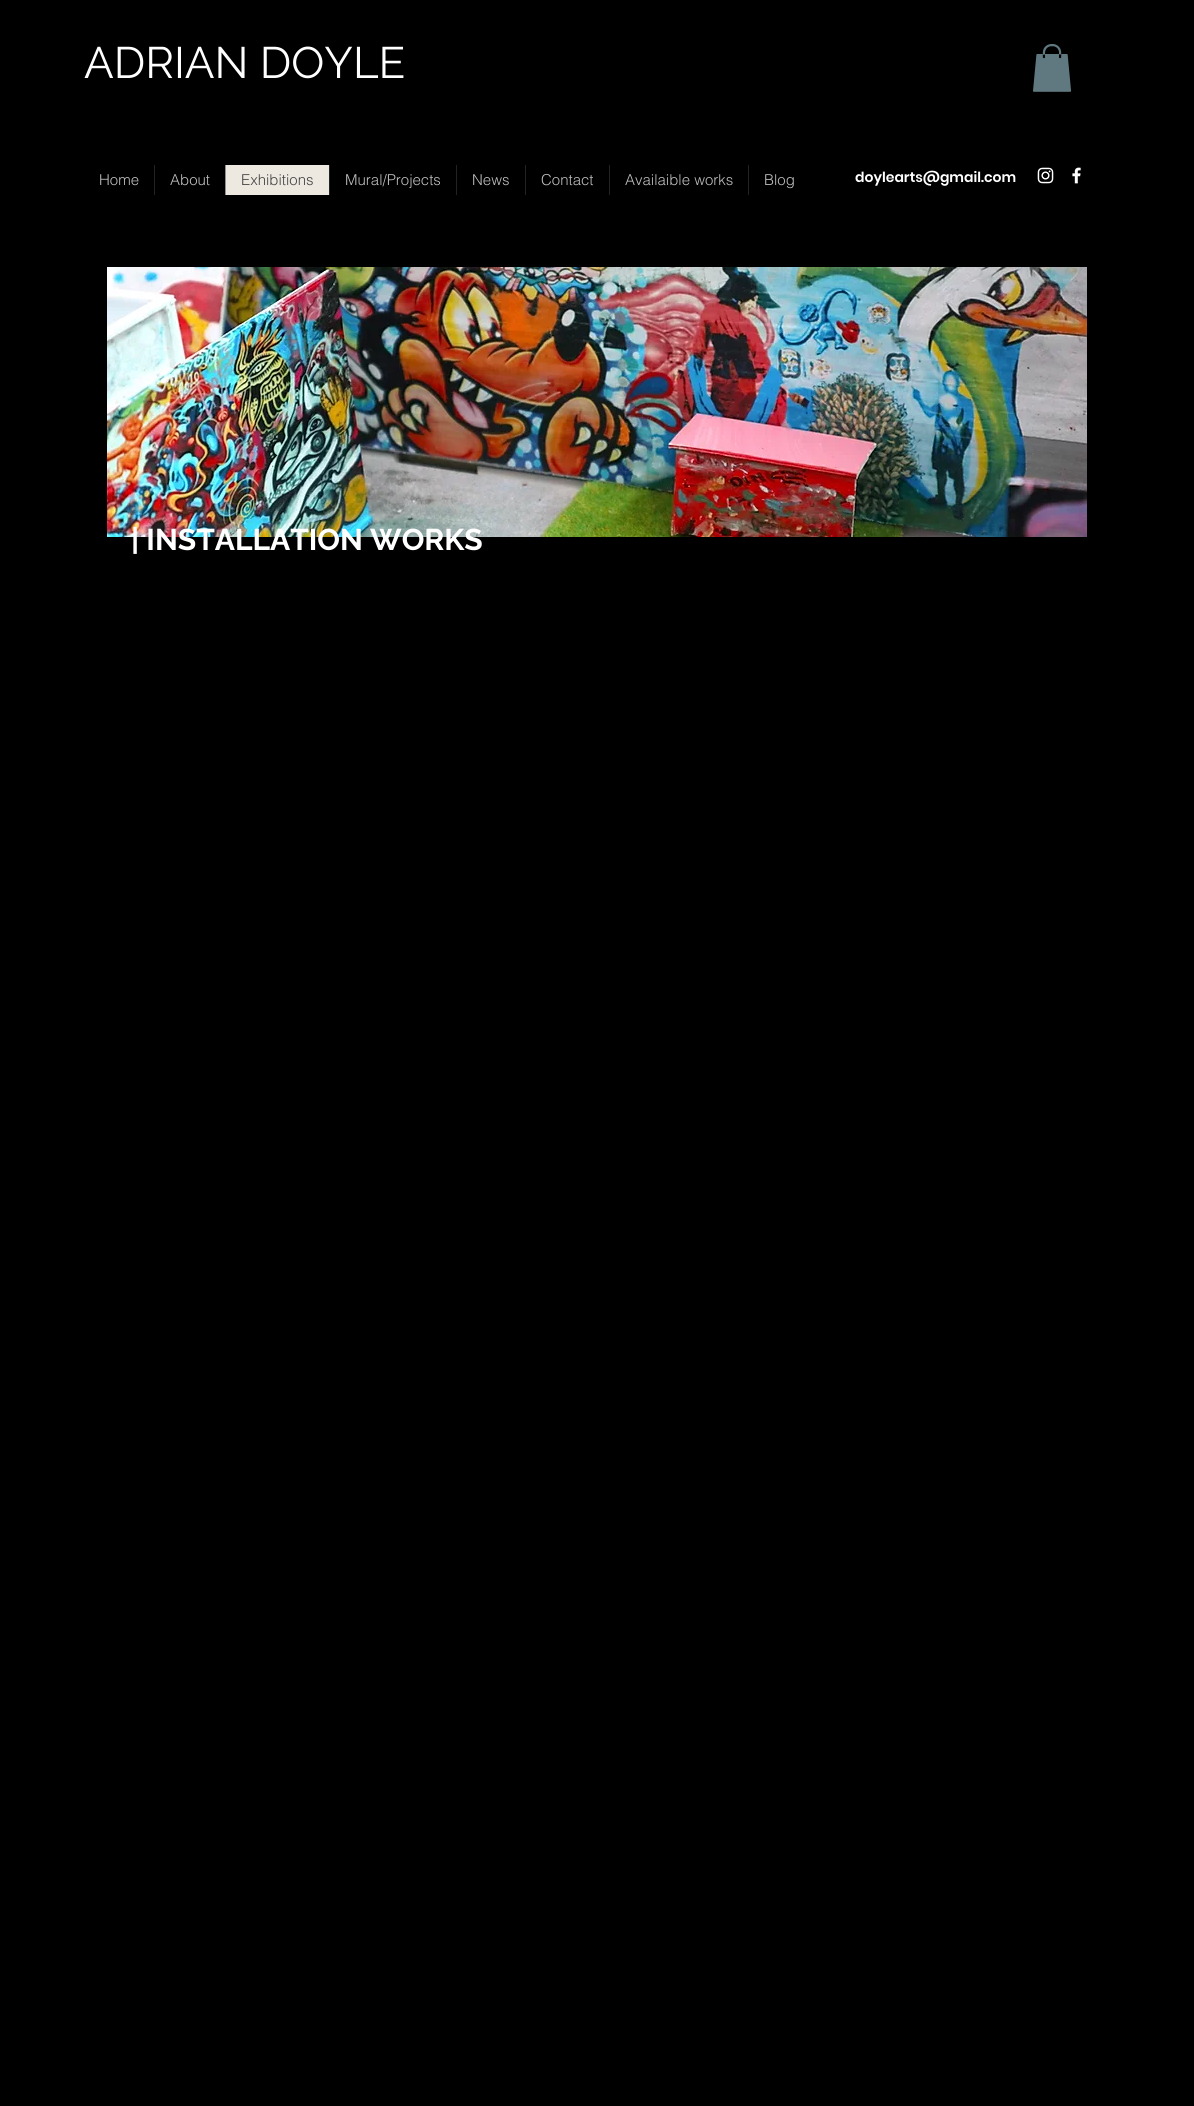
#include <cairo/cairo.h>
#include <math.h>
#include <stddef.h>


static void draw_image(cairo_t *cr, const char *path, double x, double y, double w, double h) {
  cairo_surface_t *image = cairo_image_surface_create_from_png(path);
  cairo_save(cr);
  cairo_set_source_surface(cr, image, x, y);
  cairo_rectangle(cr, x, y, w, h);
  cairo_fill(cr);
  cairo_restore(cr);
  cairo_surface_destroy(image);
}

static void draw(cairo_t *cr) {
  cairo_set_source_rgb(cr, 0, 0, 0);
  cairo_paint(cr);
  draw_image(cr, "images/1.png", 1033, 44, 39, 48);
  cairo_set_source_rgb(cr, 34 / 255.0, 34 / 255.0, 34 / 255.0);
  cairo_rectangle(cr, 154, 165, 1, 30);
  cairo_fill(cr);
  cairo_set_source_rgb(cr, 237 / 255.0, 233 / 255.0, 225 / 255.0);
  cairo_rectangle(cr, 226, 165, 103, 30);
  cairo_fill(cr);
  cairo_set_source_rgb(cr, 146 / 255.0, 144 / 255.0, 140 / 255.0);
  cairo_rectangle(cr, 225, 165, 1, 30);
  cairo_fill(cr);
  cairo_set_source_rgb(cr, 34 / 255.0, 34 / 255.0, 34 / 255.0);
  cairo_rectangle(cr, 329, 165, 1, 30);
  cairo_fill(cr);
  cairo_rectangle(cr, 456, 165, 1, 30);
  cairo_fill(cr);
  cairo_rectangle(cr, 525, 165, 1, 30);
  cairo_fill(cr);
  cairo_rectangle(cr, 609, 165, 1, 30);
  cairo_fill(cr);
  cairo_rectangle(cr, 748, 165, 1, 30);
  cairo_fill(cr);
  draw_image(cr, "images/2.png", 1037, 167, 17, 17);
  draw_image(cr, "images/3.png", 1072, 167, 9, 17);
  draw_image(cr, "images/4.png", 107, 267, 980, 270);
  cairo_select_font_face(cr, "Raleway", CAIRO_FONT_SLANT_NORMAL, CAIRO_FONT_WEIGHT_NORMAL);
  cairo_set_font_size(cr, 44);
  cairo_set_source_rgb(cr, 1, 1, 1);
  cairo_move_to(cr, 84, 78);
  cairo_show_text(cr, "ADRIAN DOYLE");
  cairo_select_font_face(cr, "helvetica Light", CAIRO_FONT_SLANT_NORMAL, CAIRO_FONT_WEIGHT_NORMAL);
  cairo_set_font_size(cr, 15);
  cairo_set_source_rgb(cr, 191 / 255.0, 191 / 255.0, 191 / 255.0);
  cairo_move_to(cr, 99, 185);
  cairo_show_text(cr, "Home");
  cairo_move_to(cr, 170, 185);
  cairo_show_text(cr, "About");
  cairo_set_source_rgb(cr, 68 / 255.0, 68 / 255.0, 68 / 255.0);
  cairo_move_to(cr, 241, 185);
  cairo_show_text(cr, "Exhibitions");
  cairo_set_source_rgb(cr, 191 / 255.0, 191 / 255.0, 191 / 255.0);
  cairo_move_to(cr, 345, 185);
  cairo_show_text(cr, "Mural/Projects");
  cairo_move_to(cr, 472, 185);
  cairo_show_text(cr, "News");
  cairo_move_to(cr, 541, 185);
  cairo_show_text(cr, "Contact");
  cairo_move_to(cr, 625, 185);
  cairo_show_text(cr, "Availaible works");
  cairo_move_to(cr, 764, 185);
  cairo_show_text(cr, "Blog");
  cairo_select_font_face(cr, "Poppins SemiBold", CAIRO_FONT_SLANT_NORMAL, CAIRO_FONT_WEIGHT_NORMAL);
  cairo_set_font_size(cr, 14);
  cairo_set_source_rgb(cr, 1, 1, 1);
  cairo_move_to(cr, 855, 182);
  cairo_show_text(cr, "doylearts@gmail.com");
  cairo_select_font_face(cr, "Raleway", CAIRO_FONT_SLANT_NORMAL, CAIRO_FONT_WEIGHT_BOLD);
  cairo_set_font_size(cr, 30);
  cairo_move_to(cr, 131, 550);
  cairo_show_text(cr, "| INSTALLATION WORKS");
}

int main(void) {
  cairo_surface_t *surface = cairo_image_surface_create(CAIRO_FORMAT_RGB24, 1194, 2106);
  cairo_t *cr = cairo_create(surface);
  cairo_font_options_t *options = cairo_font_options_create();
  cairo_font_options_set_hint_metrics(options, CAIRO_HINT_METRICS_OFF);
  cairo_font_options_set_hint_style(options, CAIRO_HINT_STYLE_NONE);
  cairo_set_font_options(cr, options);
  cairo_set_miter_limit(cr, 4);
  draw(cr);
  cairo_surface_write_to_png(surface, "out.png");
  cairo_font_options_destroy(options);
  cairo_destroy(cr);
  cairo_surface_destroy(surface);
  return 0;
}
